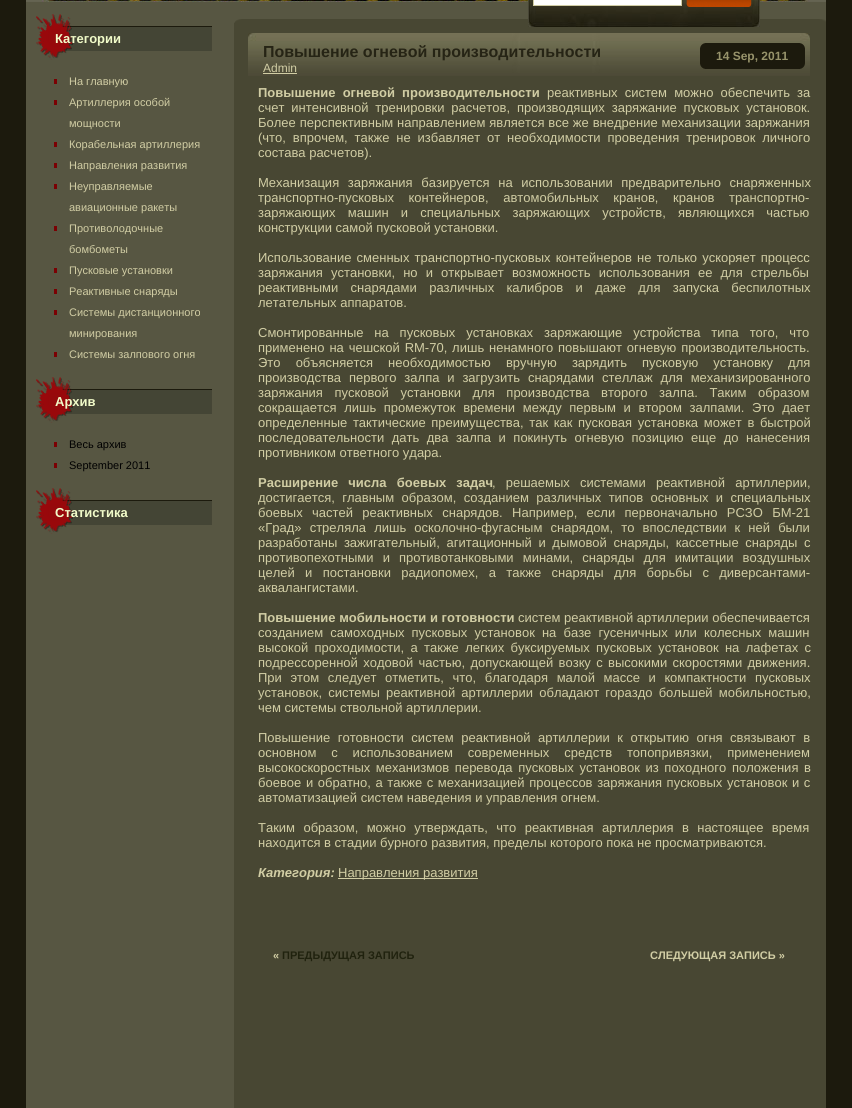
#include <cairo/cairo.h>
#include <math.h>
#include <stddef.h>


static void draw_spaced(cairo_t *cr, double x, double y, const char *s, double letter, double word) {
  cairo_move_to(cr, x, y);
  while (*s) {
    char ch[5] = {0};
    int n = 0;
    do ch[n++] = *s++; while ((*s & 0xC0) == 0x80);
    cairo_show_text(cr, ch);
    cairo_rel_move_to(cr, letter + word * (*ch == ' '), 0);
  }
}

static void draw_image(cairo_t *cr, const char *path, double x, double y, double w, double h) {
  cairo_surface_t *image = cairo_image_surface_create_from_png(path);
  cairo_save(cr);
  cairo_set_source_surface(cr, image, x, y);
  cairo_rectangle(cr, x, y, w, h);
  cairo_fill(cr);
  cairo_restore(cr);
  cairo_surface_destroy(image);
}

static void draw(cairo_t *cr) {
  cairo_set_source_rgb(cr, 28 / 255.0, 26 / 255.0, 13 / 255.0);
  cairo_paint(cr);
  draw_image(cr, "images/3.png", 26, 0, 800, 2);
  cairo_set_source_rgb(cr, 72 / 255.0, 71 / 255.0, 51 / 255.0);
  cairo_rectangle(cr, 234, 23, 592, 1085);
  cairo_fill(cr);
  draw_image(cr, "images/4.png", 234, 2, 592, 21);
  draw_image(cr, "images/1.png", 528, 0, 232, 27);
  cairo_set_source_rgb(cr, 1, 1, 1);
  cairo_rectangle(cr, 533.5, -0.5, 148, 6);
  cairo_fill_preserve(cr);
  cairo_set_source_rgb(cr, 209 / 255.0, 205 / 255.0, 164 / 255.0);
  cairo_set_line_width(cr, 1);
  cairo_stroke(cr);
  draw_image(cr, "images/2.png", 686, 0, 66, 7);
  cairo_set_source_rgb(cr, 87 / 255.0, 86 / 255.0, 66 / 255.0);
  cairo_rectangle(cr, 26, 2, 208, 1106);
  cairo_fill(cr);
  draw_image(cr, "images/5.png", 36, 14, 176, 46);
  cairo_set_source_rgb(cr, 123 / 255.0, 0, 3 / 255.0);
  cairo_rectangle(cr, 54, 79, 3, 5);
  cairo_fill(cr);
  cairo_rectangle(cr, 54, 100, 3, 5);
  cairo_fill(cr);
  cairo_rectangle(cr, 54, 142, 3, 5);
  cairo_fill(cr);
  cairo_rectangle(cr, 54, 163, 3, 5);
  cairo_fill(cr);
  cairo_rectangle(cr, 54, 184, 3, 5);
  cairo_fill(cr);
  cairo_rectangle(cr, 54, 226, 3, 5);
  cairo_fill(cr);
  cairo_rectangle(cr, 54, 268, 3, 5);
  cairo_fill(cr);
  cairo_rectangle(cr, 54, 289, 3, 5);
  cairo_fill(cr);
  cairo_rectangle(cr, 54, 310, 3, 5);
  cairo_fill(cr);
  cairo_rectangle(cr, 54, 352, 3, 5);
  cairo_fill(cr);
  draw_image(cr, "images/5.png", 36, 377, 176, 46);
  cairo_rectangle(cr, 54, 442, 3, 5);
  cairo_fill(cr);
  cairo_rectangle(cr, 54, 463, 3, 5);
  cairo_fill(cr);
  draw_image(cr, "images/5.png", 36, 488, 176, 46);
  draw_image(cr, "images/6.png", 248, 33, 562, 43);
  draw_image(cr, "images/7.png", 700, 43, 105, 26);
  cairo_set_source_rgb(cr, 209 / 255.0, 205 / 255.0, 164 / 255.0);
  cairo_rectangle(cr, 263, 73, 34, 1);
  cairo_fill(cr);
  cairo_rectangle(cr, 338, 878, 140, 1);
  cairo_fill(cr);
  cairo_select_font_face(cr, "Liberation Sans", CAIRO_FONT_SLANT_NORMAL, CAIRO_FONT_WEIGHT_BOLD);
  cairo_set_font_size(cr, 13);
  cairo_set_source_rgb(cr, 241 / 255.0, 251 / 255.0, 201 / 255.0);
  cairo_move_to(cr, 55, 43);
  cairo_show_text(cr, "Категории");
  cairo_select_font_face(cr, "Liberation Sans", CAIRO_FONT_SLANT_NORMAL, CAIRO_FONT_WEIGHT_NORMAL);
  cairo_set_font_size(cr, 11);
  cairo_set_source_rgb(cr, 209 / 255.0, 205 / 255.0, 164 / 255.0);
  cairo_move_to(cr, 69, 85);
  cairo_show_text(cr, "На главную");
  cairo_move_to(cr, 69, 106);
  cairo_show_text(cr, "Артиллерия особой");
  cairo_move_to(cr, 69, 127);
  cairo_show_text(cr, "мощности");
  cairo_move_to(cr, 69, 148);
  cairo_show_text(cr, "Корабельная артиллерия");
  cairo_move_to(cr, 69, 169);
  cairo_show_text(cr, "Направления развития");
  cairo_move_to(cr, 69, 190);
  cairo_show_text(cr, "Неуправляемые");
  cairo_move_to(cr, 69, 211);
  cairo_show_text(cr, "авиационные ракеты");
  cairo_move_to(cr, 69, 232);
  cairo_show_text(cr, "Противолодочные");
  cairo_move_to(cr, 69, 253);
  cairo_show_text(cr, "бомбометы");
  cairo_move_to(cr, 69, 274);
  cairo_show_text(cr, "Пусковые установки");
  cairo_move_to(cr, 69, 295);
  cairo_show_text(cr, "Реактивные снаряды");
  cairo_move_to(cr, 69, 316);
  cairo_show_text(cr, "Системы дистанционного");
  cairo_move_to(cr, 69, 337);
  cairo_show_text(cr, "минирования");
  cairo_move_to(cr, 69, 358);
  cairo_show_text(cr, "Системы залпового огня");
  cairo_select_font_face(cr, "Liberation Sans", CAIRO_FONT_SLANT_NORMAL, CAIRO_FONT_WEIGHT_BOLD);
  cairo_set_font_size(cr, 13);
  cairo_set_source_rgb(cr, 241 / 255.0, 251 / 255.0, 201 / 255.0);
  cairo_move_to(cr, 55, 406);
  cairo_show_text(cr, "Архив");
  cairo_select_font_face(cr, "Liberation Sans", CAIRO_FONT_SLANT_NORMAL, CAIRO_FONT_WEIGHT_NORMAL);
  cairo_set_font_size(cr, 11);
  cairo_set_source_rgb(cr, 0, 0, 0);
  cairo_move_to(cr, 69, 448);
  cairo_show_text(cr, "Весь архив");
  cairo_move_to(cr, 69, 469);
  cairo_show_text(cr, "September 2011");
  cairo_select_font_face(cr, "Liberation Sans", CAIRO_FONT_SLANT_NORMAL, CAIRO_FONT_WEIGHT_BOLD);
  cairo_set_font_size(cr, 13);
  cairo_set_source_rgb(cr, 241 / 255.0, 251 / 255.0, 201 / 255.0);
  cairo_move_to(cr, 55, 517);
  cairo_show_text(cr, "Статистика");
  cairo_set_font_size(cr, 16);
  cairo_set_source_rgb(cr, 38 / 255.0, 36 / 255.0, 21 / 255.0);
  cairo_move_to(cr, 263, 57);
  cairo_show_text(cr, "Повышение огневой производительности");
  cairo_set_font_size(cr, 12);
  cairo_set_source_rgb(cr, 151 / 255.0, 147 / 255.0, 107 / 255.0);
  cairo_move_to(cr, 716, 60);
  cairo_show_text(cr, "14 Sep, 2011");
  cairo_select_font_face(cr, "Liberation Sans", CAIRO_FONT_SLANT_NORMAL, CAIRO_FONT_WEIGHT_NORMAL);
  cairo_set_source_rgb(cr, 209 / 255.0, 205 / 255.0, 164 / 255.0);
  cairo_move_to(cr, 263, 72);
  cairo_show_text(cr, "Admin");
  cairo_select_font_face(cr, "Liberation Sans", CAIRO_FONT_SLANT_NORMAL, CAIRO_FONT_WEIGHT_BOLD);
  cairo_set_font_size(cr, 13);
  draw_spaced(cr, 258, 97, "Повышение огневой производительности", 0, 3.5);
  cairo_select_font_face(cr, "Liberation Sans", CAIRO_FONT_SLANT_NORMAL, CAIRO_FONT_WEIGHT_NORMAL);
  draw_spaced(cr, 547, 97, "реактивных систем можно обеспечить за", 0, 3.5);
  draw_spaced(cr, 258, 112, "счет интенсивной тренировки расчетов, производящих заряжание пусковых установок.", 0, 3.25);
  draw_spaced(cr, 258, 127, "Более перспективным направлением является все же внедрение механизации заряжания", 0, 0.25);
  draw_spaced(cr, 258, 142, "(что, впрочем, также не избавляет от необходимости проведения тренировок личного", 0, 3.25);
  cairo_move_to(cr, 258, 157);
  cairo_show_text(cr, "состава расчетов).");
  draw_spaced(cr, 258, 187, "Механизация заряжания базируется на использовании предварительно снаряженных", 0, 5);
  draw_spaced(cr, 258, 202, "транспортно-пусковых контейнеров, автомобильных кранов, кранов транспортно-", 0, 11);
  draw_spaced(cr, 258, 217, "заряжающих машин и специальных заряжающих устройств, являющихся частью", 0, 8.5);
  cairo_move_to(cr, 258, 232);
  cairo_show_text(cr, "конструкции самой пусковой установки.");
  draw_spaced(cr, 258, 262, "Использование сменных транспортно-пусковых контейнеров не только ускоряет процесс", 0, 1.5);
  draw_spaced(cr, 258, 277, "заряжания установки, но и открывает возможность использования ее для стрельбы", 0, 4.5);
  draw_spaced(cr, 258, 292, "реактивными снарядами различных калибров и даже для запуска беспилотных", 0, 8.75);
  cairo_move_to(cr, 258, 307);
  cairo_show_text(cr, "летательных аппаратов.");
  draw_spaced(cr, 258, 337, "Смонтированные на пусковых установках заряжающие устройства типа того, что", 0, 7.25);
  draw_spaced(cr, 258, 352, "применено на чешской RM-70, лишь ненамного повышают огневую производительность.", 0, 1.25);
  draw_spaced(cr, 258, 367, "Это объясняется необходимостью вручную зарядить пусковую установку для", 0, 11.5);
  draw_spaced(cr, 258, 382, "производства первого залпа и загрузить снарядами стеллаж для механизированного", 0, 4.25);
  draw_spaced(cr, 258, 397, "заряжания пусковой установки для производства второго залпа. Таким образом", 0, 8);
  draw_spaced(cr, 258, 412, "сокращается лишь промежуток времени между первым и втором залпами. Это дает", 0, 4);
  draw_spaced(cr, 258, 427, "определенные тактические преимущества, так как пусковая установка может в быстрой", 0, 2);
  draw_spaced(cr, 258, 442, "последовательности дать два залпа и покинуть огневую позицию еще до нанесения", 0, 3.9);
  cairo_move_to(cr, 258, 457);
  cairo_show_text(cr, "противником ответного удара.");
  cairo_select_font_face(cr, "Liberation Sans", CAIRO_FONT_SLANT_NORMAL, CAIRO_FONT_WEIGHT_BOLD);
  draw_spaced(cr, 258, 487, "Расширение числа боевых задач", 0, 6.5);
  cairo_select_font_face(cr, "Liberation Sans", CAIRO_FONT_SLANT_NORMAL, CAIRO_FONT_WEIGHT_NORMAL);
  draw_spaced(cr, 492, 487, ", решаемых системами реактивной артиллерии,", 0, 6.5);
  draw_spaced(cr, 258, 502, "достигается, главным образом, созданием различных типов основных и специальных", 0, 3.75);
  draw_spaced(cr, 258, 517, "боевых частей реактивных снарядов. Например, если первоначально РСЗО БМ-21", 0, 5.75);
  draw_spaced(cr, 258, 532, "«Град» стреляла лишь осколочно-фугасным снарядом, то впоследствии к ней были", 0, 4.5);
  draw_spaced(cr, 258, 547, "разработаны зажигательный, агитационный и дымовой снаряды, кассетные снаряды с", 0, 3);
  draw_spaced(cr, 258, 562, "противопехотными и противотанковыми минами, снаряды для имитации воздушных", 0, 5.5);
  draw_spaced(cr, 258, 577, "целей и постановки радиопомех, а также снаряды для борьбы с диверсантами-", 0, 6.75);
  cairo_move_to(cr, 258, 592);
  cairo_show_text(cr, "аквалангистами.");
  cairo_select_font_face(cr, "Liberation Sans", CAIRO_FONT_SLANT_NORMAL, CAIRO_FONT_WEIGHT_BOLD);
  cairo_move_to(cr, 258, 622);
  cairo_show_text(cr, "Повышение мобильности и готовности");
  cairo_select_font_face(cr, "Liberation Sans", CAIRO_FONT_SLANT_NORMAL, CAIRO_FONT_WEIGHT_NORMAL);
  cairo_move_to(cr, 518, 622);
  cairo_show_text(cr, "систем реактивной артиллерии обеспечивается");
  draw_spaced(cr, 258, 637, "созданием самоходных пусковых установок на базе гусеничных или колесных машин", 0, 3.5);
  draw_spaced(cr, 258, 652, "высокой проходимости, а также легких буксируемых пусковых установок на лафетах с", 0, 2.75);
  draw_spaced(cr, 258, 667, "подрессоренной ходовой частью, допускающей возку с высокими скоростями движения.", 0, 1.75);
  draw_spaced(cr, 258, 682, "При этом следует отметить, что, благодаря малой массе и компактности пусковых", 0, 5);
  draw_spaced(cr, 258, 697, "установок, системы реактивной артиллерии обладают гораздо большей мобильностью,", 0, 2.5);
  cairo_move_to(cr, 258, 712);
  cairo_show_text(cr, "чем системы ствольной артиллерии.");
  draw_spaced(cr, 258, 742, "Повышение готовности систем реактивной артиллерии к открытию огня связывают в", 0, 3.9);
  draw_spaced(cr, 258, 757, "основном с использованием современных средств топопривязки, применением", 0, 11.25);
  draw_spaced(cr, 258, 772, "высокоскоростных механизмов перевода пусковых установок из походного положения в", 0, 2);
  draw_spaced(cr, 258, 787, "боевое и обратно, а также с механизацией процессов заряжания пусковых установок и с", 0, 1);
  cairo_move_to(cr, 258, 802);
  cairo_show_text(cr, "автоматизацией систем наведения и управления огнем.");
  draw_spaced(cr, 258, 832, "Таким образом, можно утверждать, что реактивная артиллерия в настоящее время", 0, 4.75);
  cairo_move_to(cr, 258, 847);
  cairo_show_text(cr, "находится в стадии бурного развития, пределы которого пока не просматриваются.");
  cairo_select_font_face(cr, "Liberation Sans", CAIRO_FONT_SLANT_ITALIC, CAIRO_FONT_WEIGHT_BOLD);
  cairo_move_to(cr, 258, 877);
  cairo_show_text(cr, "Категория:");
  cairo_select_font_face(cr, "Liberation Sans", CAIRO_FONT_SLANT_NORMAL, CAIRO_FONT_WEIGHT_NORMAL);
  cairo_move_to(cr, 338, 877);
  cairo_show_text(cr, "Направления развития");
  cairo_select_font_face(cr, "Liberation Sans", CAIRO_FONT_SLANT_NORMAL, CAIRO_FONT_WEIGHT_BOLD);
  cairo_set_font_size(cr, 11);
  cairo_move_to(cr, 273, 959);
  cairo_show_text(cr, "«");
  cairo_set_source_rgb(cr, 32 / 255.0, 34 / 255.0, 14 / 255.0);
  cairo_move_to(cr, 282, 959);
  cairo_show_text(cr, "ПРЕДЫДУЩАЯ ЗАПИСЬ");
  cairo_set_source_rgb(cr, 209 / 255.0, 205 / 255.0, 164 / 255.0);
  cairo_move_to(cr, 650, 959);
  cairo_show_text(cr, "СЛЕДУЮЩАЯ ЗАПИСЬ »");
}

int main(void) {
  cairo_surface_t *surface = cairo_image_surface_create(CAIRO_FORMAT_RGB24, 852, 1108);
  cairo_t *cr = cairo_create(surface);
  cairo_font_options_t *options = cairo_font_options_create();
  cairo_font_options_set_hint_metrics(options, CAIRO_HINT_METRICS_OFF);
  cairo_font_options_set_hint_style(options, CAIRO_HINT_STYLE_NONE);
  cairo_set_font_options(cr, options);
  cairo_set_miter_limit(cr, 4);
  draw(cr);
  cairo_surface_write_to_png(surface, "out.png");
  cairo_font_options_destroy(options);
  cairo_destroy(cr);
  cairo_surface_destroy(surface);
  return 0;
}
